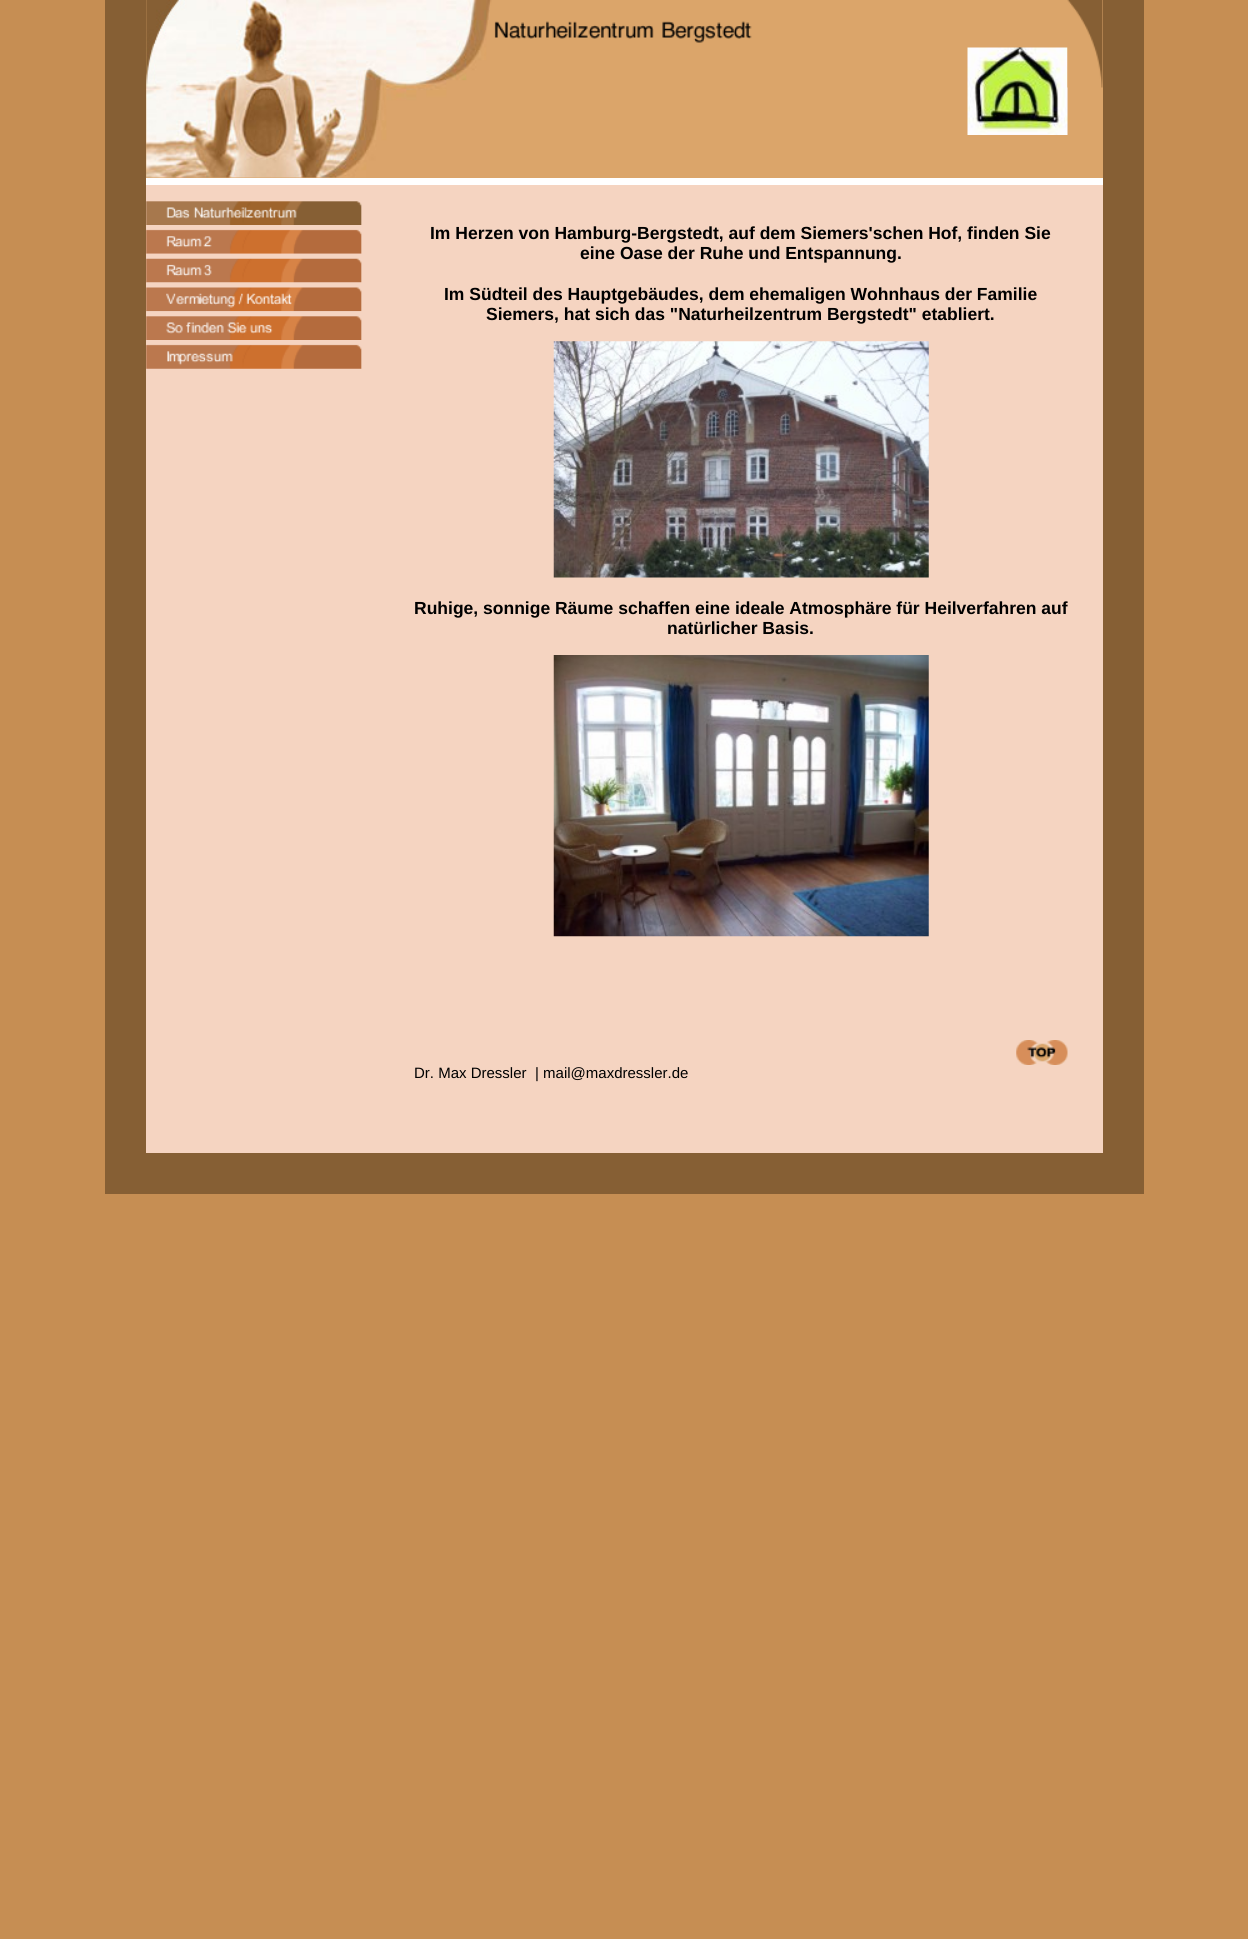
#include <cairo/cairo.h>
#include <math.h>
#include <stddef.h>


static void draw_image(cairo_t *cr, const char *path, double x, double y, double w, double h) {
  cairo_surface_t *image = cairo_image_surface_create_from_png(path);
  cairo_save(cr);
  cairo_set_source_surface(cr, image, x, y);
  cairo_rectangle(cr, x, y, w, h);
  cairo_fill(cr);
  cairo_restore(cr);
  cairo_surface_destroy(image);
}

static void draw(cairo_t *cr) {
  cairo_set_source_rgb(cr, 198 / 255.0, 142 / 255.0, 83 / 255.0);
  cairo_paint(cr);
  cairo_set_source_rgb(cr, 134 / 255.0, 95 / 255.0, 52 / 255.0);
  cairo_rectangle(cr, 1103, 0, 41, 1153);
  cairo_fill(cr);
  cairo_rectangle(cr, 146, 1153, 998, 41);
  cairo_fill(cr);
  cairo_rectangle(cr, 105, 0, 41, 1194);
  cairo_fill(cr);
  cairo_set_source_rgb(cr, 245 / 255.0, 212 / 255.0, 193 / 255.0);
  cairo_rectangle(cr, 146, 185, 957, 968);
  cairo_fill(cr);
  cairo_set_source_rgb(cr, 219 / 255.0, 165 / 255.0, 106 / 255.0);
  cairo_rectangle(cr, 146, 0, 957, 178);
  cairo_fill(cr);
  draw_image(cr, "images/1.png", 146, 0, 344, 178);
  draw_image(cr, "images/2.png", 490, 0, 262, 43);
  draw_image(cr, "images/3.png", 967, 47, 101, 88);
  draw_image(cr, "images/4.png", 1067, 0, 36, 88);
  cairo_set_source_rgb(cr, 1, 1, 1);
  cairo_rectangle(cr, 146, 178, 957, 7);
  cairo_fill(cr);
  draw_image(cr, "images/5.png", 146, 201, 216, 24);
  draw_image(cr, "images/6.png", 146, 229, 216, 25);
  draw_image(cr, "images/7.png", 146, 253, 216, 30);
  draw_image(cr, "images/8.png", 146, 282, 216, 30);
  draw_image(cr, "images/9.png", 146, 311, 216, 29);
  draw_image(cr, "images/10.png", 146, 344, 216, 25);
  draw_image(cr, "images/11.png", 553, 341, 376, 237);
  draw_image(cr, "images/12.png", 553, 655, 376, 282);
  draw_image(cr, "images/13.png", 1016, 1040, 52, 25);
  cairo_select_font_face(cr, "Liberation Sans", CAIRO_FONT_SLANT_NORMAL, CAIRO_FONT_WEIGHT_BOLD);
  cairo_set_font_size(cr, 17.5);
  cairo_set_source_rgb(cr, 0, 0, 0);
  cairo_move_to(cr, 430, 239);
  cairo_show_text(cr, "Im Herzen von Hamburg-Bergstedt, auf dem Siemers'schen Hof, finden Sie");
  cairo_move_to(cr, 580, 259);
  cairo_show_text(cr, "eine Oase der Ruhe und Entspannung.");
  cairo_move_to(cr, 444, 300);
  cairo_show_text(cr, "Im Südteil des Hauptgebäudes, dem ehemaligen Wohnhaus der Familie");
  cairo_move_to(cr, 486, 320);
  cairo_show_text(cr, "Siemers, hat sich das \"Naturheilzentrum Bergstedt\" etabliert.");
  cairo_move_to(cr, 414, 614);
  cairo_show_text(cr, "Ruhige, sonnige Räume schaffen eine ideale Atmosphäre für Heilverfahren auf");
  cairo_move_to(cr, 667, 634);
  cairo_show_text(cr, "natürlicher Basis.");
  cairo_select_font_face(cr, "Liberation Sans", CAIRO_FONT_SLANT_NORMAL, CAIRO_FONT_WEIGHT_NORMAL);
  cairo_set_font_size(cr, 15);
  cairo_move_to(cr, 414, 1078);
  cairo_show_text(cr, "Dr. Max Dressler");
  cairo_move_to(cr, 535, 1078);
  cairo_show_text(cr, "| mail@maxdressler.de");
}

int main(void) {
  cairo_surface_t *surface = cairo_image_surface_create(CAIRO_FORMAT_RGB24, 1248, 1939);
  cairo_t *cr = cairo_create(surface);
  cairo_font_options_t *options = cairo_font_options_create();
  cairo_font_options_set_hint_metrics(options, CAIRO_HINT_METRICS_OFF);
  cairo_font_options_set_hint_style(options, CAIRO_HINT_STYLE_NONE);
  cairo_set_font_options(cr, options);
  cairo_set_miter_limit(cr, 4);
  draw(cr);
  cairo_surface_write_to_png(surface, "out.png");
  cairo_font_options_destroy(options);
  cairo_destroy(cr);
  cairo_surface_destroy(surface);
  return 0;
}
